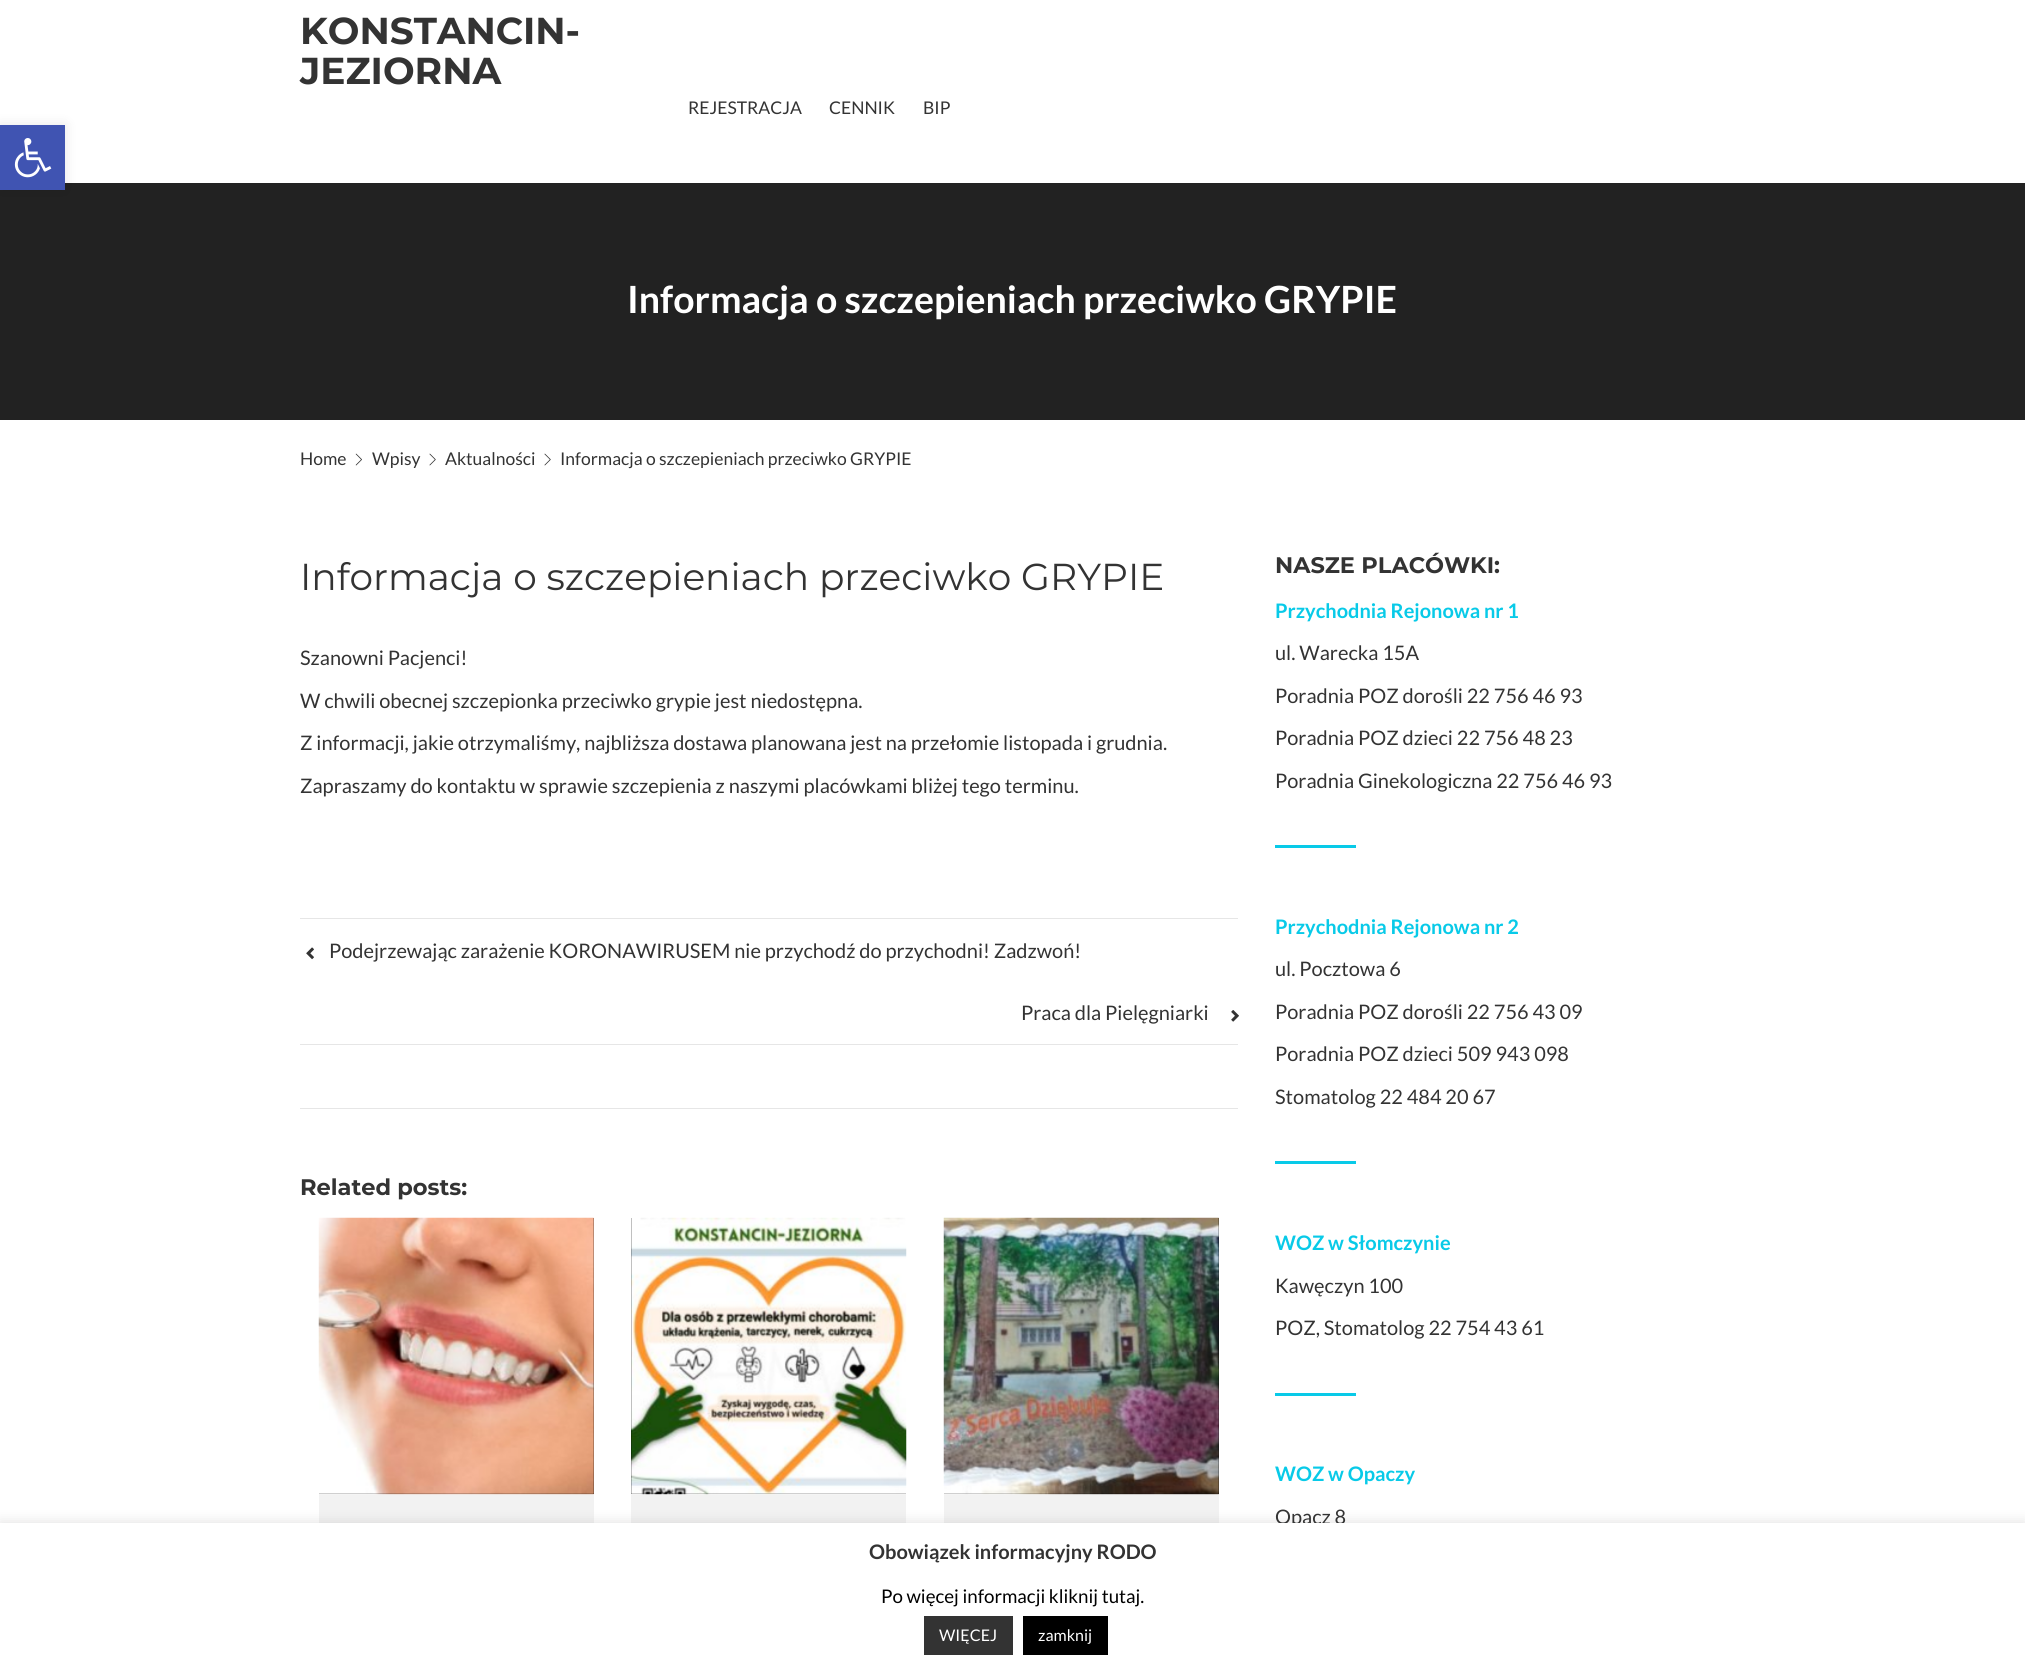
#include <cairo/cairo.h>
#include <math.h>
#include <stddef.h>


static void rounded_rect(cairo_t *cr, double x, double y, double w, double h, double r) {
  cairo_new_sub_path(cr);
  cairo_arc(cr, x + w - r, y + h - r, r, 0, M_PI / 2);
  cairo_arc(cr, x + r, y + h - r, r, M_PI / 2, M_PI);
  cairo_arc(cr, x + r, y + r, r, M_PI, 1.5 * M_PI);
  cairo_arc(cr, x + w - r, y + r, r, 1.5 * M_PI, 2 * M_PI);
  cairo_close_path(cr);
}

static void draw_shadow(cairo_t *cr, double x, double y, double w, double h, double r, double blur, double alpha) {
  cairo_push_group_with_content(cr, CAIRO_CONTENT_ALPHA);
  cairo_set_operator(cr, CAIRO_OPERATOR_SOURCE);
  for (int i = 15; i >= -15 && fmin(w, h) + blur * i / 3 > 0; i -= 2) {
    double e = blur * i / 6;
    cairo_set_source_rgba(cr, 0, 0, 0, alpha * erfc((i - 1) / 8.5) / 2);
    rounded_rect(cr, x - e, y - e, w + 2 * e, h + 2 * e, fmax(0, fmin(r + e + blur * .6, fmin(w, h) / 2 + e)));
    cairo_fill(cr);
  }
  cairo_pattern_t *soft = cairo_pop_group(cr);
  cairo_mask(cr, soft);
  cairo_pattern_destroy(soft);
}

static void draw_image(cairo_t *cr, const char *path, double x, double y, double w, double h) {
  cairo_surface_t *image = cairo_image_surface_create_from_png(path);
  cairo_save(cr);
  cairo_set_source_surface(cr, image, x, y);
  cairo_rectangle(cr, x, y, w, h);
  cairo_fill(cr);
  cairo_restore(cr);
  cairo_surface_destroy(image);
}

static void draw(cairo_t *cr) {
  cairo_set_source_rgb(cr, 1, 1, 1);
  cairo_paint(cr);
  cairo_set_source_rgb(cr, 34 / 255.0, 34 / 255.0, 34 / 255.0);
  cairo_rectangle(cr, 0, 183, 2025, 237);
  cairo_fill(cr);
  cairo_set_source_rgb(cr, 0, 0, 0);
  draw_shadow(cr, 0, 125, 65, 65, 0, 6, 0.1);
  cairo_set_source_rgb(cr, 64 / 255.0, 84 / 255.0, 178 / 255.0);
  cairo_rectangle(cr, 0, 125, 65, 65);
  cairo_fill(cr);
  draw_image(cr, "images/1.png", 14, 138, 38, 40);
  draw_image(cr, "images/2.png", 355, 453, 7, 13);
  draw_image(cr, "images/3.png", 429, 453, 7, 13);
  draw_image(cr, "images/3.png", 544, 453, 7, 13);
  cairo_set_source_rgb(cr, 230 / 255.0, 230 / 255.0, 230 / 255.0);
  cairo_rectangle(cr, 300, 1108, 938, 1);
  cairo_fill(cr);
  cairo_rectangle(cr, 300, 918, 938, 1);
  cairo_fill(cr);
  cairo_rectangle(cr, 300, 1044, 938, 1);
  cairo_fill(cr);
  draw_image(cr, "images/4.png", 306, 947, 8, 13);
  draw_image(cr, "images/5.png", 1231, 1010, 8, 12);
  cairo_set_source_rgb(cr, 0, 0, 0);
  cairo_rectangle(cr, 319, 1218, 275, 276);
  cairo_fill(cr);
  cairo_set_source_rgb(cr, 242 / 255.0, 242 / 255.0, 242 / 255.0);
  cairo_rectangle(cr, 319, 1494, 275, 29);
  cairo_fill(cr);
  draw_image(cr, "images/6.png", 318, 1217, 276, 278);
  cairo_set_source_rgb(cr, 0, 0, 0);
  cairo_rectangle(cr, 631, 1218, 275, 276);
  cairo_fill(cr);
  cairo_set_source_rgb(cr, 242 / 255.0, 242 / 255.0, 242 / 255.0);
  cairo_rectangle(cr, 631, 1494, 275, 29);
  cairo_fill(cr);
  draw_image(cr, "images/7.png", 631, 1217, 276, 278);
  cairo_set_source_rgb(cr, 0, 0, 0);
  cairo_rectangle(cr, 944, 1218, 275, 276);
  cairo_fill(cr);
  cairo_set_source_rgb(cr, 242 / 255.0, 242 / 255.0, 242 / 255.0);
  cairo_rectangle(cr, 944, 1494, 275, 29);
  cairo_fill(cr);
  draw_image(cr, "images/8.png", 943, 1217, 276, 278);
  cairo_set_source_rgb(cr, 8 / 255.0, 202 / 255.0, 232 / 255.0);
  cairo_rectangle(cr, 1275, 845, 81, 3);
  cairo_fill(cr);
  cairo_rectangle(cr, 1275, 1161, 81, 3);
  cairo_fill(cr);
  cairo_rectangle(cr, 1275, 1393, 81, 3);
  cairo_fill(cr);
  cairo_set_source_rgb(cr, 172 / 255.0, 171 / 255.0, 171 / 255.0);
  draw_shadow(cr, 0, 1521, 2025, 148, 0, 6, 0.3);
  cairo_select_font_face(cr, "Montserrat", CAIRO_FONT_SLANT_NORMAL, CAIRO_FONT_WEIGHT_BOLD);
  cairo_set_font_size(cr, 37.5);
  cairo_set_source_rgb(cr, 51 / 255.0, 51 / 255.0, 51 / 255.0);
  cairo_move_to(cr, 300, 44);
  cairo_show_text(cr, "KONSTANCIN-");
  cairo_move_to(cr, 300, 84);
  cairo_show_text(cr, "JEZIORNA");
  cairo_select_font_face(cr, "Lato", CAIRO_FONT_SLANT_NORMAL, CAIRO_FONT_WEIGHT_NORMAL);
  cairo_set_font_size(cr, 17.5);
  cairo_move_to(cr, 688, 114);
  cairo_show_text(cr, "REJESTRACJA");
  cairo_move_to(cr, 829, 114);
  cairo_show_text(cr, "CENNIK");
  cairo_move_to(cr, 923, 114);
  cairo_show_text(cr, "BIP");
  cairo_select_font_face(cr, "Lato", CAIRO_FONT_SLANT_NORMAL, CAIRO_FONT_WEIGHT_BOLD);
  cairo_set_font_size(cr, 37.5);
  cairo_set_source_rgb(cr, 1, 1, 1);
  cairo_move_to(cr, 627, 313);
  cairo_show_text(cr, "Informacja o szczepieniach przeciwko GRYPIE");
  cairo_select_font_face(cr, "Lato", CAIRO_FONT_SLANT_NORMAL, CAIRO_FONT_WEIGHT_NORMAL);
  cairo_set_font_size(cr, 17.5);
  cairo_set_source_rgb(cr, 51 / 255.0, 51 / 255.0, 51 / 255.0);
  cairo_move_to(cr, 300, 465);
  cairo_show_text(cr, "Home");
  cairo_move_to(cr, 372, 465);
  cairo_show_text(cr, "Wpisy");
  cairo_move_to(cr, 445, 465);
  cairo_show_text(cr, "Aktualności");
  cairo_move_to(cr, 560, 465);
  cairo_show_text(cr, "Informacja o szczepieniach przeciwko GRYPIE");
  cairo_select_font_face(cr, "Montserrat", CAIRO_FONT_SLANT_NORMAL, CAIRO_FONT_WEIGHT_NORMAL);
  cairo_set_font_size(cr, 37.5);
  cairo_move_to(cr, 300, 590);
  cairo_show_text(cr, "Informacja o szczepieniach przeciwko GRYPIE");
  cairo_select_font_face(cr, "Lato", CAIRO_FONT_SLANT_NORMAL, CAIRO_FONT_WEIGHT_NORMAL);
  cairo_set_font_size(cr, 20);
  cairo_move_to(cr, 300, 665);
  cairo_show_text(cr, "Szanowni Pacjenci!");
  cairo_move_to(cr, 300, 708);
  cairo_show_text(cr, "W chwili obecnej szczepionka przeciwko grypie jest niedostępna.");
  cairo_move_to(cr, 300, 750);
  cairo_show_text(cr, "Z informacji, jakie otrzymaliśmy, najbliższa dostawa planowana jest na przełomie listopada i grudnia.");
  cairo_move_to(cr, 300, 793);
  cairo_show_text(cr, "Zapraszamy do kontaktu w sprawie szczepienia z naszymi placówkami bliżej tego terminu.");
  cairo_move_to(cr, 329, 958);
  cairo_show_text(cr, "Podejrzewając zarażenie KORONAWIRUSEM nie przychodź do przychodni! Zadzwoń!");
  cairo_move_to(cr, 1021, 1020);
  cairo_show_text(cr, "Praca dla Pielęgniarki");
  cairo_select_font_face(cr, "Montserrat", CAIRO_FONT_SLANT_NORMAL, CAIRO_FONT_WEIGHT_BOLD);
  cairo_set_font_size(cr, 22.5);
  cairo_move_to(cr, 300, 1195);
  cairo_show_text(cr, "Related posts:");
  cairo_move_to(cr, 1275, 573);
  cairo_show_text(cr, "NASZE PLACÓWKI:");
  cairo_select_font_face(cr, "Lato", CAIRO_FONT_SLANT_NORMAL, CAIRO_FONT_WEIGHT_BOLD);
  cairo_set_font_size(cr, 20);
  cairo_set_source_rgb(cr, 8 / 255.0, 202 / 255.0, 232 / 255.0);
  cairo_move_to(cr, 1275, 618);
  cairo_show_text(cr, "Przychodnia Rejonowa nr 1");
  cairo_select_font_face(cr, "Lato", CAIRO_FONT_SLANT_NORMAL, CAIRO_FONT_WEIGHT_NORMAL);
  cairo_set_source_rgb(cr, 51 / 255.0, 51 / 255.0, 51 / 255.0);
  cairo_move_to(cr, 1275, 660);
  cairo_show_text(cr, "ul. Warecka 15A");
  cairo_move_to(cr, 1275, 703);
  cairo_show_text(cr, "Poradnia POZ dorośli 22 756 46 93");
  cairo_move_to(cr, 1275, 745);
  cairo_show_text(cr, "Poradnia POZ dzieci 22 756 48 23");
  cairo_move_to(cr, 1275, 788);
  cairo_show_text(cr, "Poradnia Ginekologiczna 22 756 46 93");
  cairo_select_font_face(cr, "Lato", CAIRO_FONT_SLANT_NORMAL, CAIRO_FONT_WEIGHT_BOLD);
  cairo_set_source_rgb(cr, 8 / 255.0, 202 / 255.0, 232 / 255.0);
  cairo_move_to(cr, 1275, 934);
  cairo_show_text(cr, "Przychodnia Rejonowa nr 2");
  cairo_select_font_face(cr, "Lato", CAIRO_FONT_SLANT_NORMAL, CAIRO_FONT_WEIGHT_NORMAL);
  cairo_set_source_rgb(cr, 51 / 255.0, 51 / 255.0, 51 / 255.0);
  cairo_move_to(cr, 1275, 976);
  cairo_show_text(cr, "ul. Pocztowa 6");
  cairo_move_to(cr, 1275, 1019);
  cairo_show_text(cr, "Poradnia POZ dorośli 22 756 43 09");
  cairo_move_to(cr, 1275, 1061);
  cairo_show_text(cr, "Poradnia POZ dzieci 509 943 098");
  cairo_move_to(cr, 1275, 1104);
  cairo_show_text(cr, "Stomatolog 22 484 20 67");
  cairo_select_font_face(cr, "Lato", CAIRO_FONT_SLANT_NORMAL, CAIRO_FONT_WEIGHT_BOLD);
  cairo_set_source_rgb(cr, 8 / 255.0, 202 / 255.0, 232 / 255.0);
  cairo_move_to(cr, 1275, 1250);
  cairo_show_text(cr, "WOZ w Słomczynie");
  cairo_select_font_face(cr, "Lato", CAIRO_FONT_SLANT_NORMAL, CAIRO_FONT_WEIGHT_NORMAL);
  cairo_set_source_rgb(cr, 51 / 255.0, 51 / 255.0, 51 / 255.0);
  cairo_move_to(cr, 1275, 1293);
  cairo_show_text(cr, "Kawęczyn 100");
  cairo_move_to(cr, 1275, 1335);
  cairo_show_text(cr, "POZ, Stomatolog 22 754 43 61");
  cairo_select_font_face(cr, "Lato", CAIRO_FONT_SLANT_NORMAL, CAIRO_FONT_WEIGHT_BOLD);
  cairo_set_source_rgb(cr, 8 / 255.0, 202 / 255.0, 232 / 255.0);
  cairo_move_to(cr, 1275, 1481);
  cairo_show_text(cr, "WOZ w Opaczy");
  cairo_select_font_face(cr, "Lato", CAIRO_FONT_SLANT_NORMAL, CAIRO_FONT_WEIGHT_NORMAL);
  cairo_set_source_rgb(cr, 51 / 255.0, 51 / 255.0, 51 / 255.0);
  cairo_move_to(cr, 1275, 1524);
  cairo_show_text(cr, "Opacz 8");
  cairo_set_source_rgb(cr, 1, 1, 1);
  cairo_rectangle(cr, 0, 1523, 2025, 147);
  cairo_fill(cr);
  cairo_select_font_face(cr, "Lato", CAIRO_FONT_SLANT_NORMAL, CAIRO_FONT_WEIGHT_BOLD);
  cairo_set_source_rgb(cr, 51 / 255.0, 51 / 255.0, 51 / 255.0);
  cairo_move_to(cr, 869, 1559);
  cairo_show_text(cr, "Obowiązek informacyjny RODO");
  cairo_select_font_face(cr, "Lato", CAIRO_FONT_SLANT_NORMAL, CAIRO_FONT_WEIGHT_NORMAL);
  cairo_set_font_size(cr, 18.75);
  cairo_set_source_rgb(cr, 0, 0, 0);
  cairo_move_to(cr, 881, 1603);
  cairo_show_text(cr, "Po więcej informacji kliknij tutaj.");
  cairo_set_source_rgb(cr, 51 / 255.0, 51 / 255.0, 51 / 255.0);
  cairo_rectangle(cr, 924, 1616, 89, 39);
  cairo_fill(cr);
  cairo_set_font_size(cr, 16);
  cairo_set_source_rgb(cr, 1, 1, 1);
  cairo_move_to(cr, 939, 1641);
  cairo_show_text(cr, "WIĘCEJ");
  cairo_set_source_rgb(cr, 0, 0, 0);
  cairo_rectangle(cr, 1023, 1616, 85, 39);
  cairo_fill(cr);
  cairo_set_source_rgb(cr, 1, 1, 1);
  cairo_move_to(cr, 1038, 1641);
  cairo_show_text(cr, "zamknij");
}

int main(void) {
  cairo_surface_t *surface = cairo_image_surface_create(CAIRO_FORMAT_RGB24, 2025, 1670);
  cairo_t *cr = cairo_create(surface);
  cairo_font_options_t *options = cairo_font_options_create();
  cairo_font_options_set_hint_metrics(options, CAIRO_HINT_METRICS_OFF);
  cairo_font_options_set_hint_style(options, CAIRO_HINT_STYLE_NONE);
  cairo_set_font_options(cr, options);
  cairo_set_miter_limit(cr, 4);
  draw(cr);
  cairo_surface_write_to_png(surface, "out.png");
  cairo_font_options_destroy(options);
  cairo_destroy(cr);
  cairo_surface_destroy(surface);
  return 0;
}
